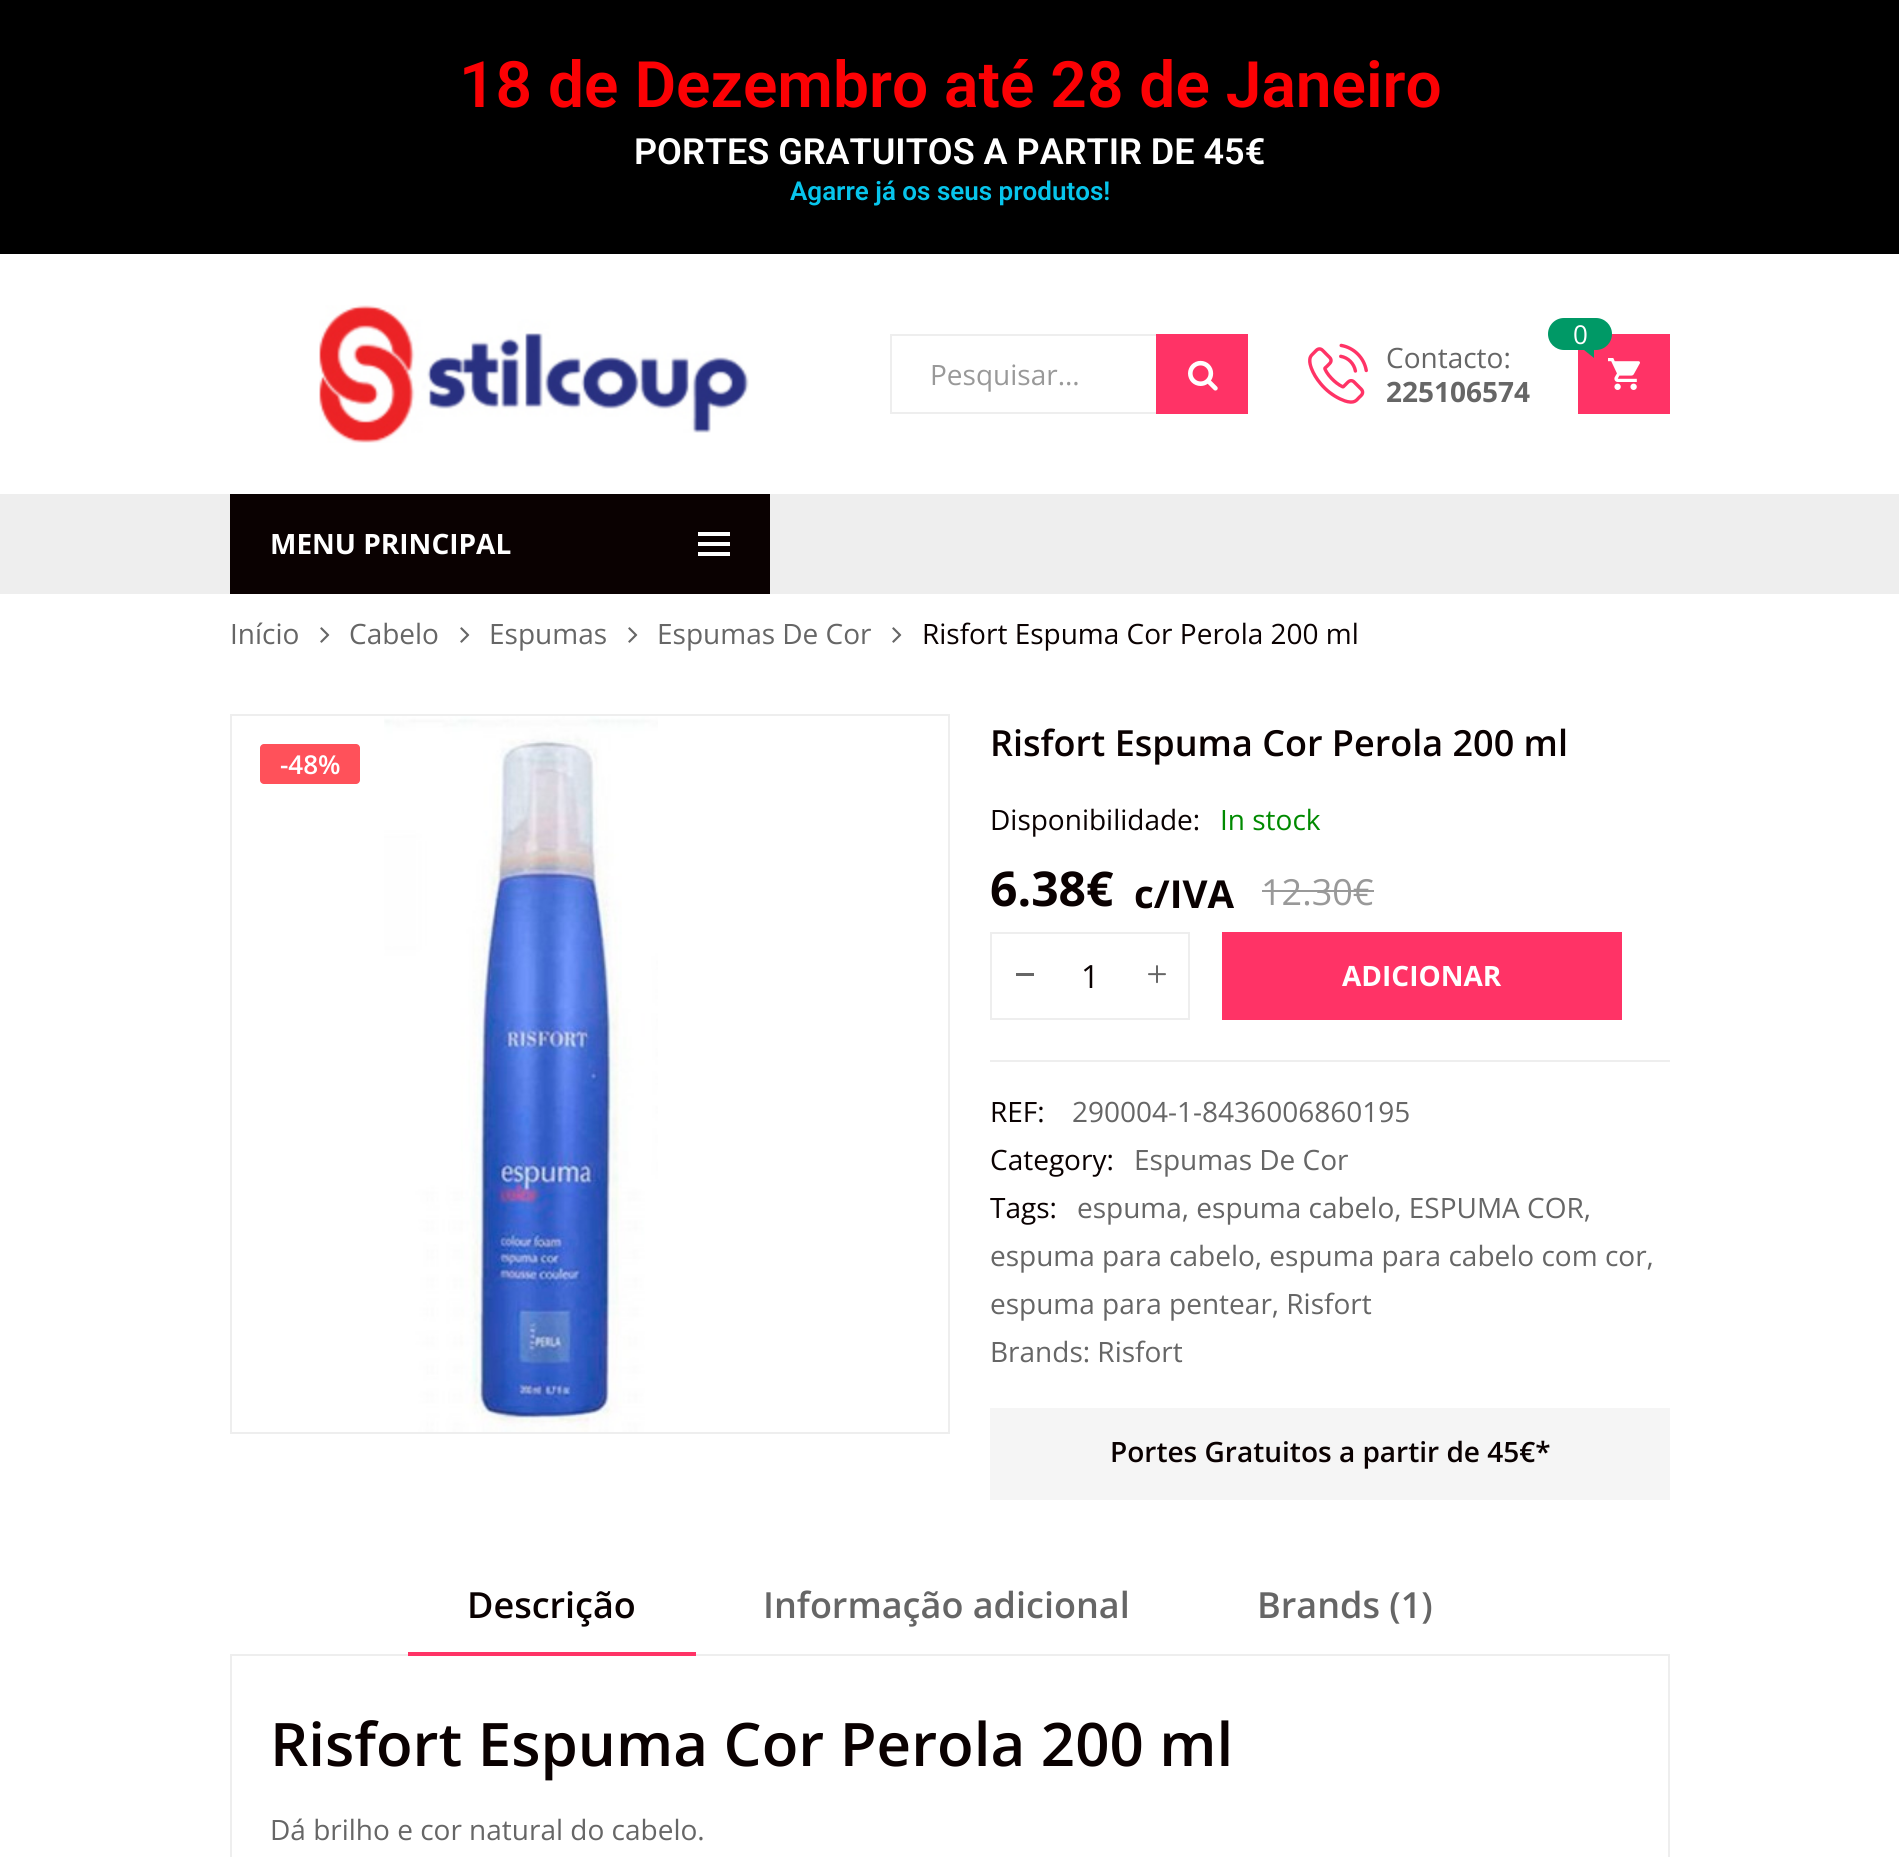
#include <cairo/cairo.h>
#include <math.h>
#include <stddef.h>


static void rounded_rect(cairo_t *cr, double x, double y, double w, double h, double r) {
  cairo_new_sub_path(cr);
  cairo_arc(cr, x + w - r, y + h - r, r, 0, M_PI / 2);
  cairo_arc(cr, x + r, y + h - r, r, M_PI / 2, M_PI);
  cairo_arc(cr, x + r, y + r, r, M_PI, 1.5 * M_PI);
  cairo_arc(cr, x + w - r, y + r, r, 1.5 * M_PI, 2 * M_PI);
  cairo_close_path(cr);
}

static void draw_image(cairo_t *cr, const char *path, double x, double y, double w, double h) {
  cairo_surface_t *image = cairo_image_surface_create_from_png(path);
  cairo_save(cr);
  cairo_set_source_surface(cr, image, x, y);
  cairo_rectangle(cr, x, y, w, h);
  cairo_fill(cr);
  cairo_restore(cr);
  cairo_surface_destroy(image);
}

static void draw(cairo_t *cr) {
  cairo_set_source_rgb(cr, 1, 1, 1);
  cairo_paint(cr);
  cairo_set_source_rgb(cr, 0, 0, 0);
  cairo_rectangle(cr, 0, 0, 1899, 254);
  cairo_fill(cr);
  draw_image(cr, "images/1.png", 319, 305, 430, 138);
  cairo_rectangle(cr, 891, 335, 356, 78);
  cairo_set_source_rgb(cr, 238 / 255.0, 238 / 255.0, 238 / 255.0);
  cairo_stroke(cr);
  cairo_set_source_rgb(cr, 1, 51 / 255.0, 102 / 255.0);
  cairo_rectangle(cr, 1156, 334, 92, 80);
  cairo_fill(cr);
  draw_image(cr, "images/2.png", 1188, 360, 30, 31);
  cairo_rectangle(cr, 1578, 334, 92, 80);
  cairo_fill(cr);
  cairo_set_source_rgb(cr, 0, 153 / 255.0, 102 / 255.0);
  rounded_rect(cr, 1548, 318, 64, 32, 16);
  cairo_fill(cr);
  cairo_new_path(cr);
  cairo_move_to(cr, 1584, 350);
  cairo_line_to(cr, 1594, 350);
  cairo_line_to(cr, 1594, 358);
  cairo_close_path(cr);
  cairo_fill(cr);
  draw_image(cr, "images/3.png", 1608, 358, 32, 32);
  draw_image(cr, "images/4.png", 1308, 343, 60, 61);
  cairo_set_source_rgb(cr, 238 / 255.0, 238 / 255.0, 238 / 255.0);
  cairo_rectangle(cr, 0, 494, 1899, 100);
  cairo_fill(cr);
  cairo_set_source_rgb(cr, 10 / 255.0, 1 / 255.0, 1 / 255.0);
  cairo_rectangle(cr, 230, 494, 540, 100);
  cairo_fill(cr);
  cairo_set_source_rgb(cr, 1, 1, 1);
  cairo_rectangle(cr, 698, 532, 32, 4);
  cairo_fill(cr);
  cairo_rectangle(cr, 698, 542, 32, 4);
  cairo_fill(cr);
  cairo_rectangle(cr, 698, 552, 32, 4);
  cairo_fill(cr);
  draw_image(cr, "images/5.png", 320, 627, 10, 16);
  draw_image(cr, "images/5.png", 460, 627, 10, 16);
  draw_image(cr, "images/5.png", 628, 627, 10, 16);
  draw_image(cr, "images/5.png", 892, 627, 10, 16);
  cairo_rectangle(cr, 231, 715, 718, 718);
  cairo_set_source_rgb(cr, 238 / 255.0, 238 / 255.0, 238 / 255.0);
  cairo_stroke(cr);
  draw_image(cr, "images/6.png", 384, 716, 274, 716);
  cairo_set_source_rgb(cr, 153 / 255.0, 153 / 255.0, 153 / 255.0);
  cairo_rectangle(cr, 1262, 890, 112, 2);
  cairo_fill(cr);
  cairo_rectangle(cr, 991, 933, 198, 86);
  cairo_set_source_rgb(cr, 238 / 255.0, 238 / 255.0, 238 / 255.0);
  cairo_stroke(cr);
  cairo_set_source_rgb(cr, 102 / 255.0, 102 / 255.0, 102 / 255.0);
  cairo_rectangle(cr, 1016, 973, 18, 3);
  cairo_fill(cr);
  draw_image(cr, "images/7.png", 1148, 965, 18, 19);
  cairo_set_source_rgb(cr, 1, 51 / 255.0, 102 / 255.0);
  cairo_rectangle(cr, 1222, 932, 400, 88);
  cairo_fill(cr);
  cairo_set_source_rgb(cr, 238 / 255.0, 238 / 255.0, 238 / 255.0);
  cairo_rectangle(cr, 990, 1060, 680, 2);
  cairo_fill(cr);
  cairo_set_source_rgb(cr, 245 / 255.0, 245 / 255.0, 245 / 255.0);
  cairo_rectangle(cr, 990, 1408, 680, 92);
  cairo_fill(cr);
  cairo_set_source_rgb(cr, 1, 81 / 255.0, 90 / 255.0);
  rounded_rect(cr, 260, 744, 100, 40, 4);
  cairo_fill(cr);
  cairo_rectangle(cr, 231, 1655, 1438, 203);
  cairo_set_source_rgb(cr, 238 / 255.0, 238 / 255.0, 238 / 255.0);
  cairo_stroke(cr);
  cairo_set_source_rgb(cr, 1, 51 / 255.0, 102 / 255.0);
  cairo_rectangle(cr, 408, 1652, 288, 4);
  cairo_fill(cr);
  cairo_select_font_face(cr, "Roboto SemiBold", CAIRO_FONT_SLANT_NORMAL, CAIRO_FONT_WEIGHT_NORMAL);
  cairo_set_font_size(cr, 64);
  cairo_set_source_rgb(cr, 252 / 255.0, 1 / 255.0, 4 / 255.0);
  cairo_move_to(cr, 459, 107);
  cairo_show_text(cr, "18 de Dezembro até 28 de Janeiro");
  cairo_set_font_size(cr, 36);
  cairo_set_source_rgb(cr, 1, 1, 1);
  cairo_move_to(cr, 634, 164);
  cairo_show_text(cr, "PORTES GRATUITOS A PARTIR DE 45€");
  cairo_set_font_size(cr, 26);
  cairo_set_source_rgb(cr, 7 / 255.0, 197 / 255.0, 236 / 255.0);
  cairo_move_to(cr, 790, 200);
  cairo_show_text(cr, "Agarre já os seus produtos!");
  cairo_select_font_face(cr, "Open Sans", CAIRO_FONT_SLANT_NORMAL, CAIRO_FONT_WEIGHT_NORMAL);
  cairo_set_font_size(cr, 28);
  cairo_set_source_rgb(cr, 153 / 255.0, 153 / 255.0, 153 / 255.0);
  cairo_move_to(cr, 930, 385);
  cairo_show_text(cr, "Pesquisar...");
  cairo_set_font_size(cr, 26);
  cairo_set_source_rgb(cr, 1, 1, 1);
  cairo_move_to(cr, 1573, 344);
  cairo_show_text(cr, "0");
  cairo_set_font_size(cr, 28);
  cairo_set_source_rgb(cr, 102 / 255.0, 102 / 255.0, 102 / 255.0);
  cairo_move_to(cr, 1386, 368);
  cairo_show_text(cr, "Contacto:");
  cairo_select_font_face(cr, "Open Sans", CAIRO_FONT_SLANT_NORMAL, CAIRO_FONT_WEIGHT_BOLD);
  cairo_move_to(cr, 1386, 402);
  cairo_show_text(cr, "225106574");
  cairo_set_source_rgb(cr, 1, 1, 1);
  cairo_move_to(cr, 270, 554);
  cairo_show_text(cr, "MENU PRINCIPAL");
  cairo_select_font_face(cr, "Open Sans", CAIRO_FONT_SLANT_NORMAL, CAIRO_FONT_WEIGHT_NORMAL);
  cairo_set_source_rgb(cr, 102 / 255.0, 102 / 255.0, 102 / 255.0);
  cairo_move_to(cr, 230, 644);
  cairo_show_text(cr, "Início");
  cairo_move_to(cr, 349, 644);
  cairo_show_text(cr, "Cabelo");
  cairo_move_to(cr, 489, 644);
  cairo_show_text(cr, "Espumas");
  cairo_move_to(cr, 657, 644);
  cairo_show_text(cr, "Espumas De Cor");
  cairo_set_source_rgb(cr, 10 / 255.0, 1 / 255.0, 1 / 255.0);
  cairo_move_to(cr, 922, 644);
  cairo_show_text(cr, "Risfort Espuma Cor Perola 200 ml");
  cairo_select_font_face(cr, "Open Sans SemiBold", CAIRO_FONT_SLANT_NORMAL, CAIRO_FONT_WEIGHT_NORMAL);
  cairo_set_font_size(cr, 36);
  cairo_move_to(cr, 990, 756);
  cairo_show_text(cr, "Risfort Espuma Cor Perola 200 ml");
  cairo_select_font_face(cr, "Open Sans", CAIRO_FONT_SLANT_NORMAL, CAIRO_FONT_WEIGHT_NORMAL);
  cairo_set_font_size(cr, 28);
  cairo_move_to(cr, 990, 830);
  cairo_show_text(cr, "Disponibilidade:");
  cairo_set_source_rgb(cr, 0, 138 / 255.0, 0);
  cairo_move_to(cr, 1220, 830);
  cairo_show_text(cr, "In stock");
  cairo_select_font_face(cr, "Open Sans", CAIRO_FONT_SLANT_NORMAL, CAIRO_FONT_WEIGHT_BOLD);
  cairo_set_font_size(cr, 48);
  cairo_set_source_rgb(cr, 10 / 255.0, 1 / 255.0, 1 / 255.0);
  cairo_move_to(cr, 990, 906);
  cairo_show_text(cr, "6.38€");
  cairo_set_font_size(cr, 38.5);
  cairo_move_to(cr, 1134, 908);
  cairo_show_text(cr, "c/IVA");
  cairo_select_font_face(cr, "Open Sans", CAIRO_FONT_SLANT_NORMAL, CAIRO_FONT_WEIGHT_NORMAL);
  cairo_set_font_size(cr, 36);
  cairo_set_source_rgb(cr, 153 / 255.0, 153 / 255.0, 153 / 255.0);
  cairo_move_to(cr, 1261, 905);
  cairo_show_text(cr, "12.30€");
  cairo_set_font_size(cr, 32);
  cairo_set_source_rgb(cr, 10 / 255.0, 1 / 255.0, 1 / 255.0);
  cairo_move_to(cr, 1081, 988);
  cairo_show_text(cr, "1");
  cairo_select_font_face(cr, "Open Sans", CAIRO_FONT_SLANT_NORMAL, CAIRO_FONT_WEIGHT_BOLD);
  cairo_set_font_size(cr, 28);
  cairo_set_source_rgb(cr, 1, 1, 1);
  cairo_move_to(cr, 1342, 986);
  cairo_show_text(cr, "ADICIONAR");
  cairo_select_font_face(cr, "Open Sans", CAIRO_FONT_SLANT_NORMAL, CAIRO_FONT_WEIGHT_NORMAL);
  cairo_set_source_rgb(cr, 10 / 255.0, 1 / 255.0, 1 / 255.0);
  cairo_move_to(cr, 990, 1122);
  cairo_show_text(cr, "REF:");
  cairo_set_source_rgb(cr, 102 / 255.0, 102 / 255.0, 102 / 255.0);
  cairo_move_to(cr, 1072, 1122);
  cairo_show_text(cr, "290004-1-8436006860195");
  cairo_set_source_rgb(cr, 10 / 255.0, 1 / 255.0, 1 / 255.0);
  cairo_move_to(cr, 990, 1170);
  cairo_show_text(cr, "Category:");
  cairo_set_source_rgb(cr, 102 / 255.0, 102 / 255.0, 102 / 255.0);
  cairo_move_to(cr, 1134, 1170);
  cairo_show_text(cr, "Espumas De Cor");
  cairo_set_source_rgb(cr, 10 / 255.0, 1 / 255.0, 1 / 255.0);
  cairo_move_to(cr, 990, 1218);
  cairo_show_text(cr, "Tags:");
  cairo_set_source_rgb(cr, 102 / 255.0, 102 / 255.0, 102 / 255.0);
  cairo_move_to(cr, 1077, 1218);
  cairo_show_text(cr, "espuma, espuma cabelo, ESPUMA COR,");
  cairo_move_to(cr, 990, 1266);
  cairo_show_text(cr, "espuma para cabelo, espuma para cabelo com cor,");
  cairo_move_to(cr, 990, 1314);
  cairo_show_text(cr, "espuma para pentear, Risfort");
  cairo_move_to(cr, 990, 1362);
  cairo_show_text(cr, "Brands: Risfort");
  cairo_select_font_face(cr, "Open Sans SemiBold", CAIRO_FONT_SLANT_NORMAL, CAIRO_FONT_WEIGHT_NORMAL);
  cairo_set_source_rgb(cr, 10 / 255.0, 1 / 255.0, 1 / 255.0);
  cairo_move_to(cr, 1110, 1462);
  cairo_show_text(cr, "Portes Gratuitos a partir de 45€*");
  cairo_set_font_size(cr, 26);
  cairo_set_source_rgb(cr, 1, 1, 1);
  cairo_move_to(cr, 280, 774);
  cairo_show_text(cr, "-48%");
  cairo_set_font_size(cr, 36);
  cairo_set_source_rgb(cr, 10 / 255.0, 1 / 255.0, 1 / 255.0);
  cairo_move_to(cr, 467, 1618);
  cairo_show_text(cr, "Descrição");
  cairo_set_source_rgb(cr, 102 / 255.0, 102 / 255.0, 102 / 255.0);
  cairo_move_to(cr, 763, 1618);
  cairo_show_text(cr, "Informação adicional");
  cairo_move_to(cr, 1257, 1618);
  cairo_show_text(cr, "Brands (1)");
  cairo_set_font_size(cr, 60);
  cairo_set_source_rgb(cr, 10 / 255.0, 1 / 255.0, 1 / 255.0);
  cairo_move_to(cr, 270, 1766);
  cairo_show_text(cr, "Risfort Espuma Cor Perola 200 ml");
  cairo_select_font_face(cr, "Open Sans", CAIRO_FONT_SLANT_NORMAL, CAIRO_FONT_WEIGHT_NORMAL);
  cairo_set_font_size(cr, 28);
  cairo_set_source_rgb(cr, 102 / 255.0, 102 / 255.0, 102 / 255.0);
  cairo_move_to(cr, 270, 1840);
  cairo_show_text(cr, "Dá brilho e cor natural do cabelo.");
}

int main(void) {
  cairo_surface_t *surface = cairo_image_surface_create(CAIRO_FORMAT_RGB24, 1899, 1857);
  cairo_t *cr = cairo_create(surface);
  cairo_font_options_t *options = cairo_font_options_create();
  cairo_font_options_set_hint_metrics(options, CAIRO_HINT_METRICS_OFF);
  cairo_font_options_set_hint_style(options, CAIRO_HINT_STYLE_NONE);
  cairo_set_font_options(cr, options);
  cairo_set_miter_limit(cr, 4);
  draw(cr);
  cairo_surface_write_to_png(surface, "out.png");
  cairo_font_options_destroy(options);
  cairo_destroy(cr);
  cairo_surface_destroy(surface);
  return 0;
}
